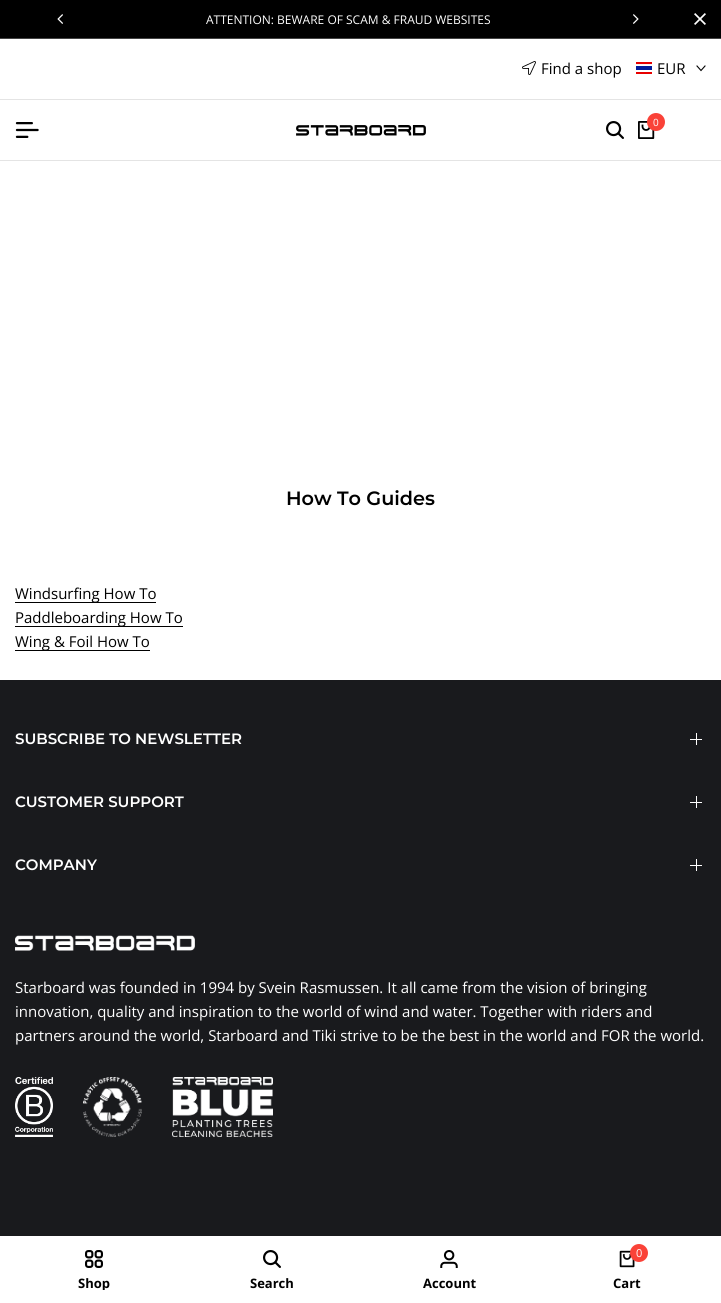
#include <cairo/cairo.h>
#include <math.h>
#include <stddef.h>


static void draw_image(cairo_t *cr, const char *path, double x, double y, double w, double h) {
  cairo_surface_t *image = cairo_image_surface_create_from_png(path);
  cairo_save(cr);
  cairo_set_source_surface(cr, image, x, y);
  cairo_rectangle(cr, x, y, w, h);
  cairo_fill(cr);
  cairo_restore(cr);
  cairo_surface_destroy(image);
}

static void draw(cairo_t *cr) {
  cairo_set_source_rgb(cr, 1, 1, 1);
  cairo_paint(cr);
  cairo_set_source_rgb(cr, 0, 0, 0);
  cairo_rectangle(cr, 0, 0, 721, 38);
  cairo_fill(cr);
  cairo_set_source_rgb(cr, 68 / 255.0, 68 / 255.0, 68 / 255.0);
  cairo_rectangle(cr, 0, 38, 721, 1);
  cairo_fill(cr);
  draw_image(cr, "images/1.png", 57, 14, 6, 10);
  draw_image(cr, "images/2.png", 633, 14, 6, 10);
  draw_image(cr, "images/3.png", 694, 13, 12, 12);
  cairo_set_source_rgb(cr, 228 / 255.0, 228 / 255.0, 228 / 255.0);
  cairo_rectangle(cr, 0, 160, 721, 1);
  cairo_fill(cr);
  cairo_rectangle(cr, 0, 99, 721, 1);
  cairo_fill(cr);
  draw_image(cr, "images/4.png", 522, 61, 14, 14);
  draw_image(cr, "images/5.png", 636, 62, 16, 12);
  cairo_new_path(cr);
  cairo_move_to(cr, 705, 66);
  cairo_line_to(cr, 701, 70.5);
  cairo_line_to(cr, 697, 66);
  cairo_set_source_rgb(cr, 0, 0, 0);
  cairo_set_line_width(cr, 1.1);
  cairo_set_line_cap(cr, CAIRO_LINE_CAP_SQUARE);
  cairo_stroke(cr);
  draw_image(cr, "images/6.png", 15, 122, 24, 16);
  draw_image(cr, "images/7.png", 296, 125, 130, 11);
  draw_image(cr, "images/8.png", 606, 121, 18, 18);
  draw_image(cr, "images/9.png", 638, 121, 17, 18);
  cairo_set_source_rgb(cr, 250 / 255.0, 66 / 255.0, 56 / 255.0);
  cairo_arc(cr, 656, 122, 9, 0, 2 * M_PI);
  cairo_fill(cr);
  cairo_set_source_rgb(cr, 0, 0, 0);
  cairo_rectangle(cr, 15, 602, 141, 1);
  cairo_fill(cr);
  cairo_rectangle(cr, 15, 626, 168, 1);
  cairo_fill(cr);
  cairo_rectangle(cr, 15, 650, 135, 1);
  cairo_fill(cr);
  cairo_set_source_rgb(cr, 25 / 255.0, 26 / 255.0, 29 / 255.0);
  cairo_rectangle(cr, 0, 680, 721, 556);
  cairo_fill(cr);
  cairo_set_source_rgb(cr, 1, 1, 1);
  cairo_rectangle(cr, 696, 733, 1, 12);
  cairo_fill(cr);
  cairo_rectangle(cr, 690, 739, 12, 1);
  cairo_fill(cr);
  cairo_rectangle(cr, 696, 796, 1, 12);
  cairo_fill(cr);
  cairo_rectangle(cr, 690, 802, 12, 1);
  cairo_fill(cr);
  cairo_rectangle(cr, 696, 859, 1, 12);
  cairo_fill(cr);
  cairo_rectangle(cr, 690, 865, 12, 1);
  cairo_fill(cr);
  draw_image(cr, "images/10.png", 15, 935, 180, 16);
  draw_image(cr, "images/11.png", 15, 1077, 38, 60);
  draw_image(cr, "images/12.png", 83, 1077, 59, 60);
  draw_image(cr, "images/13.png", 172, 1077, 101, 60);
  draw_image(cr, "images/14.png", 85, 1250, 18, 18);
  draw_image(cr, "images/8.png", 263, 1250, 18, 18);
  draw_image(cr, "images/15.png", 440, 1250, 18, 18);
  draw_image(cr, "images/16.png", 619, 1250, 16, 18);
  cairo_set_source_rgb(cr, 250 / 255.0, 66 / 255.0, 56 / 255.0);
  cairo_arc(cr, 639, 1253, 9, 0, 2 * M_PI);
  cairo_fill(cr);
  cairo_select_font_face(cr, "Open Sans", CAIRO_FONT_SLANT_NORMAL, CAIRO_FONT_WEIGHT_NORMAL);
  cairo_set_font_size(cr, 12);
  cairo_set_source_rgb(cr, 1, 1, 1);
  cairo_move_to(cr, 206, 24);
  cairo_show_text(cr, "ATTENTION: BEWARE OF SCAM & FRAUD WEBSITES");
  cairo_set_font_size(cr, 15);
  cairo_set_source_rgb(cr, 0, 0, 0);
  cairo_move_to(cr, 541, 74);
  cairo_show_text(cr, "Find a shop");
  cairo_move_to(cr, 657, 74);
  cairo_show_text(cr, "EUR");
  cairo_set_font_size(cr, 10);
  cairo_set_source_rgb(cr, 1, 1, 1);
  cairo_move_to(cr, 653, 126);
  cairo_show_text(cr, "0");
  cairo_select_font_face(cr, "Montserrat SemiBold", CAIRO_FONT_SLANT_NORMAL, CAIRO_FONT_WEIGHT_NORMAL);
  cairo_set_font_size(cr, 19.25);
  cairo_set_source_rgb(cr, 0, 0, 0);
  cairo_move_to(cr, 286, 505);
  cairo_show_text(cr, "How To Guides");
  cairo_select_font_face(cr, "Open Sans", CAIRO_FONT_SLANT_NORMAL, CAIRO_FONT_WEIGHT_NORMAL);
  cairo_set_font_size(cr, 15);
  cairo_move_to(cr, 15, 599);
  cairo_show_text(cr, "Windsurfing How To");
  cairo_move_to(cr, 15, 623);
  cairo_show_text(cr, "Paddleboarding How To");
  cairo_move_to(cr, 15, 647);
  cairo_show_text(cr, "Wing & Foil How To");
  cairo_select_font_face(cr, "Montserrat SemiBold", CAIRO_FONT_SLANT_NORMAL, CAIRO_FONT_WEIGHT_NORMAL);
  cairo_set_source_rgb(cr, 1, 1, 1);
  cairo_move_to(cr, 15, 744);
  cairo_show_text(cr, "SUBSCRIBE TO NEWSLETTER");
  cairo_move_to(cr, 15, 807);
  cairo_show_text(cr, "CUSTOMER SUPPORT");
  cairo_move_to(cr, 15, 870);
  cairo_show_text(cr, "COMPANY");
  cairo_select_font_face(cr, "Open Sans", CAIRO_FONT_SLANT_NORMAL, CAIRO_FONT_WEIGHT_NORMAL);
  cairo_move_to(cr, 15, 993);
  cairo_show_text(cr, "Starboard was founded in 1994 by Svein Rasmussen. It all came from the vision of bringing");
  cairo_move_to(cr, 15, 1017);
  cairo_show_text(cr, "innovation, quality and inspiration to the world of wind and water. Together with riders and");
  cairo_move_to(cr, 15, 1041);
  cairo_show_text(cr, "partners around the world, Starboard and Tiki strive to be the best in the world and FOR the world.");
  cairo_save(cr);
  cairo_rectangle(cr, 15, 1277, 158, 13);
  cairo_clip(cr);
  cairo_select_font_face(cr, "Open Sans", CAIRO_FONT_SLANT_NORMAL, CAIRO_FONT_WEIGHT_BOLD);
  cairo_set_font_size(cr, 13);
  cairo_set_source_rgb(cr, 0, 0, 0);
  cairo_move_to(cr, 78, 1288);
  cairo_show_text(cr, "Shop");
  cairo_restore(cr);
  cairo_select_font_face(cr, "Open Sans", CAIRO_FONT_SLANT_NORMAL, CAIRO_FONT_WEIGHT_BOLD);
  cairo_set_font_size(cr, 13);
  cairo_set_source_rgb(cr, 0, 0, 0);
  cairo_move_to(cr, 250, 1288);
  cairo_show_text(cr, "Search");
  cairo_move_to(cr, 423, 1288);
  cairo_show_text(cr, "Account");
  cairo_select_font_face(cr, "Open Sans", CAIRO_FONT_SLANT_NORMAL, CAIRO_FONT_WEIGHT_NORMAL);
  cairo_set_font_size(cr, 11);
  cairo_set_source_rgb(cr, 1, 1, 1);
  cairo_move_to(cr, 636, 1257);
  cairo_show_text(cr, "0");
  cairo_select_font_face(cr, "Open Sans", CAIRO_FONT_SLANT_NORMAL, CAIRO_FONT_WEIGHT_BOLD);
  cairo_set_font_size(cr, 13);
  cairo_set_source_rgb(cr, 0, 0, 0);
  cairo_move_to(cr, 613, 1288);
  cairo_show_text(cr, "Cart");
}

int main(void) {
  cairo_surface_t *surface = cairo_image_surface_create(CAIRO_FORMAT_RGB24, 721, 1303);
  cairo_t *cr = cairo_create(surface);
  cairo_font_options_t *options = cairo_font_options_create();
  cairo_font_options_set_hint_metrics(options, CAIRO_HINT_METRICS_OFF);
  cairo_font_options_set_hint_style(options, CAIRO_HINT_STYLE_NONE);
  cairo_set_font_options(cr, options);
  cairo_set_miter_limit(cr, 4);
  draw(cr);
  cairo_surface_write_to_png(surface, "out.png");
  cairo_font_options_destroy(options);
  cairo_destroy(cr);
  cairo_surface_destroy(surface);
  return 0;
}
